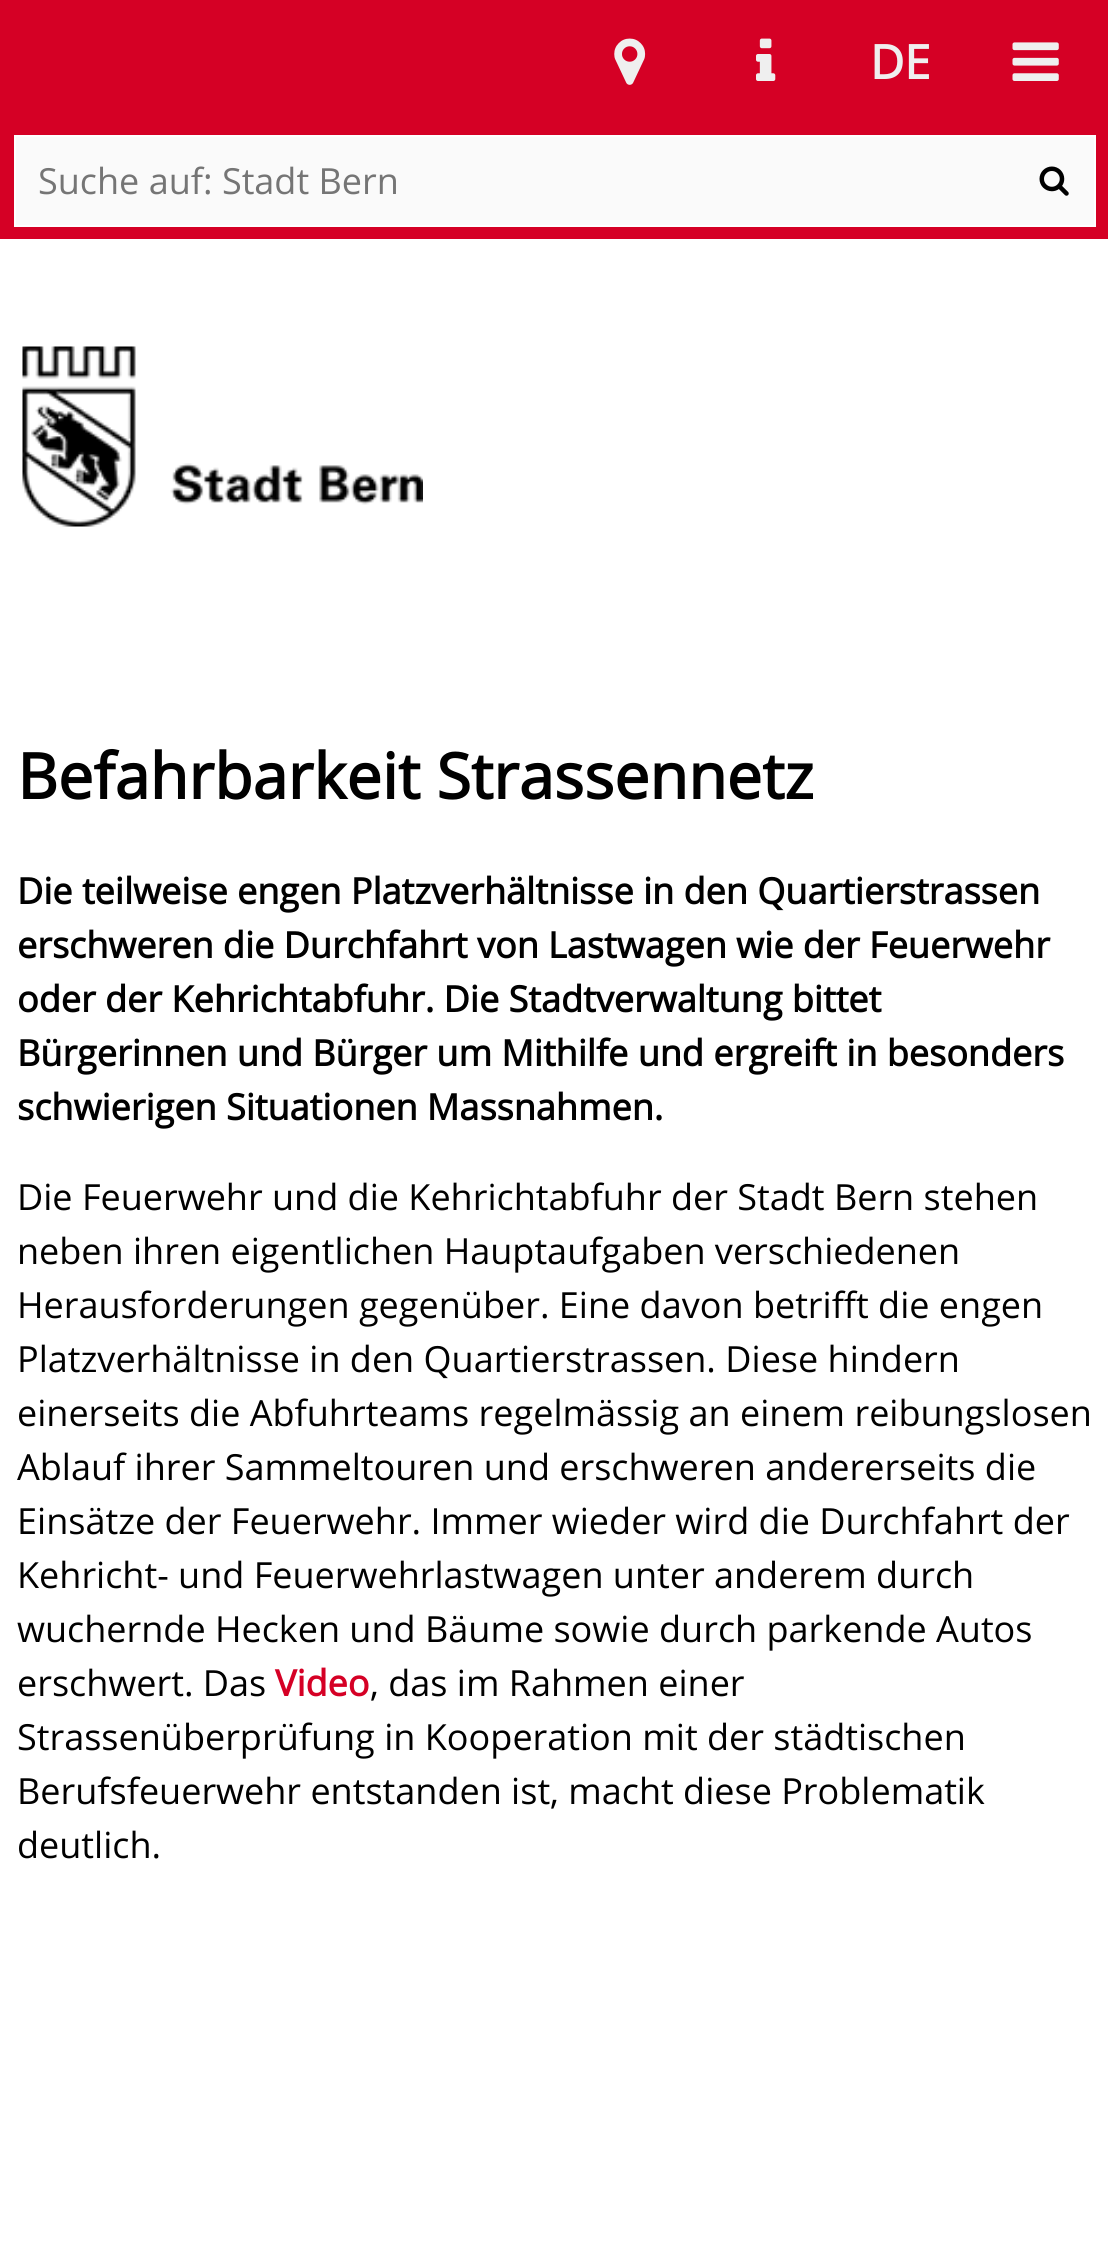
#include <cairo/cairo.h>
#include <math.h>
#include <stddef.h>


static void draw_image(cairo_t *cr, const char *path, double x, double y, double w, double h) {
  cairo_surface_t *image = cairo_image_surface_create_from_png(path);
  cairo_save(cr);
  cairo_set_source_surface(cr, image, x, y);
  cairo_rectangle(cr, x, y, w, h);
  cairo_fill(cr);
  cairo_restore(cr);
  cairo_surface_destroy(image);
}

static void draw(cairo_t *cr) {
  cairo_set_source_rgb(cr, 1, 1, 1);
  cairo_paint(cr);
  cairo_set_source_rgb(cr, 213 / 255.0, 0, 37 / 255.0);
  cairo_rectangle(cr, 0, 0, 1108, 239);
  cairo_fill(cr);
  draw_image(cr, "images/1.png", 614, 38, 32, 47);
  draw_image(cr, "images/2.png", 756, 38, 20, 43);
  draw_image(cr, "images/3.png", 1012, 42, 47, 39);
  cairo_set_source_rgb(cr, 250 / 255.0, 250 / 255.0, 250 / 255.0);
  cairo_rectangle(cr, 15, 136, 1080, 90);
  cairo_fill_preserve(cr);
  cairo_set_source_rgb(cr, 1, 1, 1);
  cairo_stroke(cr);
  draw_image(cr, "images/4.png", 1039, 166, 30, 30);
  draw_image(cr, "images/5.png", 22, 346, 401, 181);
  cairo_select_font_face(cr, "Open Sans", CAIRO_FONT_SLANT_NORMAL, CAIRO_FONT_WEIGHT_BOLD);
  cairo_set_font_size(cr, 47);
  cairo_set_source_rgb(cr, 239 / 255.0, 239 / 255.0, 239 / 255.0);
  cairo_move_to(cr, 870, 79);
  cairo_show_text(cr, "DE");
  cairo_select_font_face(cr, "Open Sans", CAIRO_FONT_SLANT_NORMAL, CAIRO_FONT_WEIGHT_NORMAL);
  cairo_set_font_size(cr, 36);
  cairo_set_source_rgb(cr, 117 / 255.0, 117 / 255.0, 117 / 255.0);
  cairo_move_to(cr, 38, 194);
  cairo_show_text(cr, "Suche auf: Stadt Bern");
  cairo_select_font_face(cr, "Open Sans", CAIRO_FONT_SLANT_NORMAL, CAIRO_FONT_WEIGHT_BOLD);
  cairo_set_font_size(cr, 63);
  cairo_set_source_rgb(cr, 0, 0, 0);
  cairo_move_to(cr, 17, 799);
  cairo_show_text(cr, "Befahrbarkeit Strassennetz");
  cairo_set_font_size(cr, 36);
  cairo_move_to(cr, 17, 904);
  cairo_show_text(cr, "Die teilweise engen Platzverhältnisse in den Quartierstrassen");
  cairo_move_to(cr, 17, 958);
  cairo_show_text(cr, "erschweren die Durchfahrt von Lastwagen wie der Feuerwehr");
  cairo_move_to(cr, 17, 1012);
  cairo_show_text(cr, "oder der Kehrichtabfuhr. Die Stadtverwaltung bittet");
  cairo_move_to(cr, 17, 1066);
  cairo_show_text(cr, "Bürgerinnen und Bürger um Mithilfe und ergreift in besonders");
  cairo_move_to(cr, 17, 1120);
  cairo_show_text(cr, "schwierigen Situationen Massnahmen.");
  cairo_select_font_face(cr, "Open Sans", CAIRO_FONT_SLANT_NORMAL, CAIRO_FONT_WEIGHT_NORMAL);
  cairo_move_to(cr, 17, 1210);
  cairo_show_text(cr, "Die Feuerwehr und die Kehrichtabfuhr der Stadt Bern stehen");
  cairo_move_to(cr, 17, 1264);
  cairo_show_text(cr, "neben ihren eigentlichen Hauptaufgaben verschiedenen");
  cairo_move_to(cr, 17, 1318);
  cairo_show_text(cr, "Herausforderungen gegenüber. Eine davon betrifft die engen");
  cairo_move_to(cr, 17, 1372);
  cairo_show_text(cr, "Platzverhältnisse in den Quartierstrassen. Diese hindern");
  cairo_move_to(cr, 17, 1426);
  cairo_show_text(cr, "einerseits die Abfuhrteams regelmässig an einem reibungslosen");
  cairo_move_to(cr, 17, 1480);
  cairo_show_text(cr, "Ablauf ihrer Sammeltouren und erschweren andererseits die");
  cairo_move_to(cr, 17, 1534);
  cairo_show_text(cr, "Einsätze der Feuerwehr. Immer wieder wird die Durchfahrt der");
  cairo_move_to(cr, 17, 1588);
  cairo_show_text(cr, "Kehricht- und Feuerwehrlastwagen unter anderem durch");
  cairo_move_to(cr, 17, 1642);
  cairo_show_text(cr, "wuchernde Hecken und Bäume sowie durch parkende Autos");
  cairo_move_to(cr, 17, 1696);
  cairo_show_text(cr, "erschwert. Das");
  cairo_select_font_face(cr, "Open Sans", CAIRO_FONT_SLANT_NORMAL, CAIRO_FONT_WEIGHT_BOLD);
  cairo_set_source_rgb(cr, 213 / 255.0, 0, 37 / 255.0);
  cairo_move_to(cr, 275, 1696);
  cairo_show_text(cr, "Video");
  cairo_select_font_face(cr, "Open Sans", CAIRO_FONT_SLANT_NORMAL, CAIRO_FONT_WEIGHT_NORMAL);
  cairo_set_source_rgb(cr, 0, 0, 0);
  cairo_move_to(cr, 370, 1696);
  cairo_show_text(cr, ", das im Rahmen einer");
  cairo_move_to(cr, 17, 1750);
  cairo_show_text(cr, "Strassenüberprüfung in Kooperation mit der städtischen");
  cairo_move_to(cr, 17, 1804);
  cairo_show_text(cr, "Berufsfeuerwehr entstanden ist, macht diese Problematik");
  cairo_move_to(cr, 17, 1858);
  cairo_show_text(cr, "deutlich.");
}

int main(void) {
  cairo_surface_t *surface = cairo_image_surface_create(CAIRO_FORMAT_RGB24, 1108, 2249);
  cairo_t *cr = cairo_create(surface);
  cairo_font_options_t *options = cairo_font_options_create();
  cairo_font_options_set_hint_metrics(options, CAIRO_HINT_METRICS_OFF);
  cairo_font_options_set_hint_style(options, CAIRO_HINT_STYLE_NONE);
  cairo_set_font_options(cr, options);
  cairo_set_miter_limit(cr, 4);
  draw(cr);
  cairo_surface_write_to_png(surface, "out.png");
  cairo_font_options_destroy(options);
  cairo_destroy(cr);
  cairo_surface_destroy(surface);
  return 0;
}
